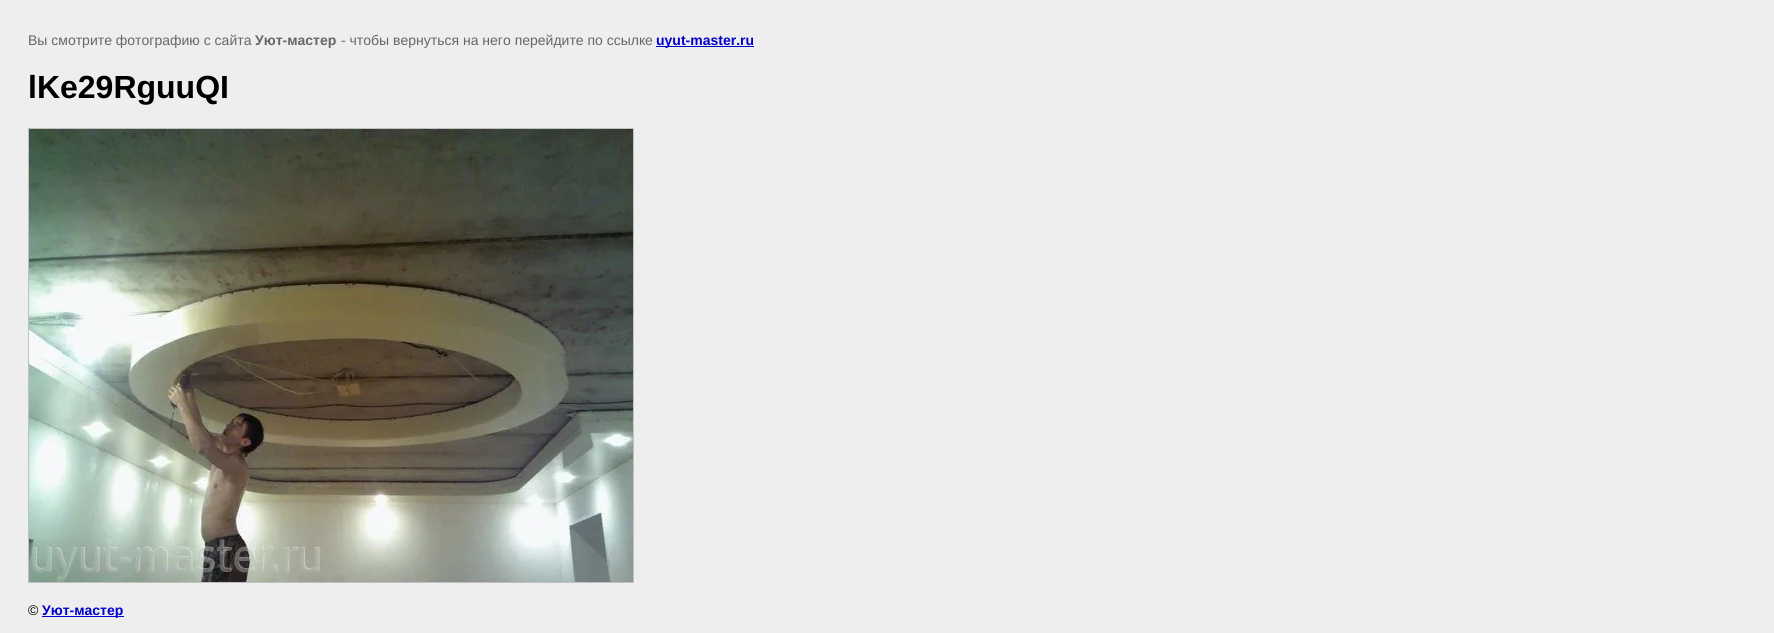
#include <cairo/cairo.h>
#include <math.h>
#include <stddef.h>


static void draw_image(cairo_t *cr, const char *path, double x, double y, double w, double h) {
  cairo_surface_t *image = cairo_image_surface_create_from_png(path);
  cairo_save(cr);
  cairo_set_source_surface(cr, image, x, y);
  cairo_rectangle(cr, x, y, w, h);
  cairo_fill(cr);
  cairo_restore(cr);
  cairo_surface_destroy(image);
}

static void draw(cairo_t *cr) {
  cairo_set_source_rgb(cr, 238 / 255.0, 238 / 255.0, 238 / 255.0);
  cairo_paint(cr);
  cairo_set_source_rgb(cr, 0, 0, 204 / 255.0);
  cairo_rectangle(cr, 656, 46, 98, 1);
  cairo_fill(cr);
  cairo_rectangle(cr, 28.5, 128.5, 605, 454);
  cairo_set_source_rgb(cr, 192 / 255.0, 192 / 255.0, 192 / 255.0);
  cairo_set_line_width(cr, 1);
  cairo_stroke(cr);
  draw_image(cr, "images/1.png", 29, 129, 604, 453);
  cairo_set_source_rgb(cr, 0, 0, 204 / 255.0);
  cairo_rectangle(cr, 42, 616, 82, 1);
  cairo_fill(cr);
  cairo_select_font_face(cr, "Liberation Sans", CAIRO_FONT_SLANT_NORMAL, CAIRO_FONT_WEIGHT_NORMAL);
  cairo_set_font_size(cr, 14);
  cairo_set_source_rgb(cr, 102 / 255.0, 102 / 255.0, 102 / 255.0);
  cairo_move_to(cr, 28, 45);
  cairo_show_text(cr, "Вы смотрите фотографию с сайта");
  cairo_select_font_face(cr, "Liberation Sans", CAIRO_FONT_SLANT_NORMAL, CAIRO_FONT_WEIGHT_BOLD);
  cairo_move_to(cr, 255, 45);
  cairo_show_text(cr, "Уют-мастер");
  cairo_select_font_face(cr, "Liberation Sans", CAIRO_FONT_SLANT_NORMAL, CAIRO_FONT_WEIGHT_NORMAL);
  cairo_move_to(cr, 341, 45);
  cairo_show_text(cr, "- чтобы вернуться на него перейдите по ссылке");
  cairo_select_font_face(cr, "Liberation Sans", CAIRO_FONT_SLANT_NORMAL, CAIRO_FONT_WEIGHT_BOLD);
  cairo_set_source_rgb(cr, 0, 0, 204 / 255.0);
  cairo_move_to(cr, 656, 45);
  cairo_show_text(cr, "uyut-master.ru");
  cairo_set_font_size(cr, 32);
  cairo_set_source_rgb(cr, 0, 0, 0);
  cairo_move_to(cr, 28, 98);
  cairo_show_text(cr, "lKe29RguuQI");
  cairo_select_font_face(cr, "Liberation Sans", CAIRO_FONT_SLANT_NORMAL, CAIRO_FONT_WEIGHT_NORMAL);
  cairo_set_font_size(cr, 14);
  cairo_move_to(cr, 28, 615);
  cairo_show_text(cr, "©");
  cairo_select_font_face(cr, "Liberation Sans", CAIRO_FONT_SLANT_NORMAL, CAIRO_FONT_WEIGHT_BOLD);
  cairo_set_source_rgb(cr, 0, 0, 204 / 255.0);
  cairo_move_to(cr, 42, 615);
  cairo_show_text(cr, "Уют-мастер");
}

int main(void) {
  cairo_surface_t *surface = cairo_image_surface_create(CAIRO_FORMAT_RGB24, 1774, 633);
  cairo_t *cr = cairo_create(surface);
  cairo_font_options_t *options = cairo_font_options_create();
  cairo_font_options_set_hint_metrics(options, CAIRO_HINT_METRICS_OFF);
  cairo_font_options_set_hint_style(options, CAIRO_HINT_STYLE_NONE);
  cairo_set_font_options(cr, options);
  cairo_set_miter_limit(cr, 4);
  draw(cr);
  cairo_surface_write_to_png(surface, "out.png");
  cairo_font_options_destroy(options);
  cairo_destroy(cr);
  cairo_surface_destroy(surface);
  return 0;
}
